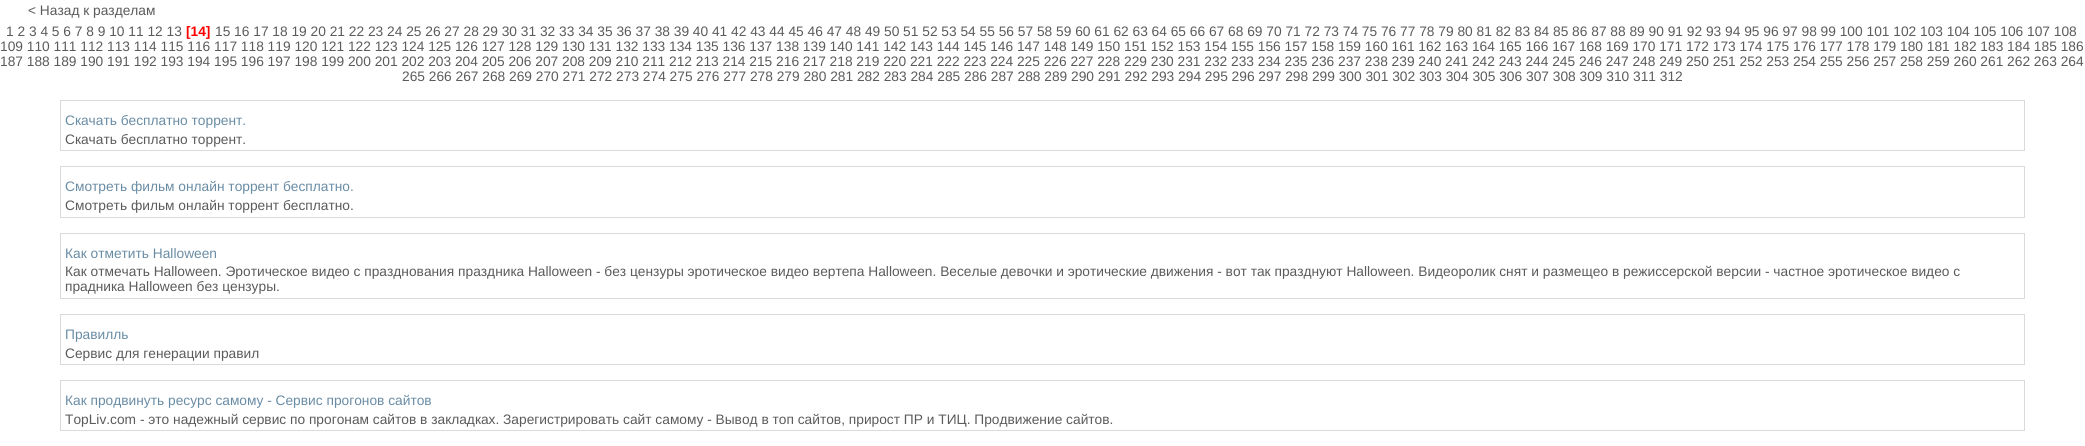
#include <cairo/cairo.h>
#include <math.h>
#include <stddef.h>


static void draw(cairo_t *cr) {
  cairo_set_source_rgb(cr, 1, 1, 1);
  cairo_paint(cr);
  cairo_rectangle(cr, 60.5, 100.5, 1964, 50);
  cairo_set_source_rgb(cr, 218 / 255.0, 218 / 255.0, 218 / 255.0);
  cairo_set_line_width(cr, 1);
  cairo_stroke(cr);
  cairo_rectangle(cr, 60.5, 166.5, 1964, 51);
  cairo_stroke(cr);
  cairo_rectangle(cr, 60.5, 233.5, 1964, 65);
  cairo_stroke(cr);
  cairo_rectangle(cr, 60.5, 314.5, 1964, 50);
  cairo_stroke(cr);
  cairo_rectangle(cr, 60.5, 380.5, 1964, 50);
  cairo_stroke(cr);
  cairo_select_font_face(cr, "Liberation Sans", CAIRO_FONT_SLANT_NORMAL, CAIRO_FONT_WEIGHT_NORMAL);
  cairo_set_font_size(cr, 13.75);
  cairo_set_source_rgb(cr, 91 / 255.0, 91 / 255.0, 91 / 255.0);
  cairo_move_to(cr, 28, 15);
  cairo_show_text(cr, "< Назад к разделам");
  cairo_move_to(cr, 6, 36);
  cairo_show_text(cr, "1 2 3 4 5 6 7 8 9 10 11 12 13");
  cairo_select_font_face(cr, "Liberation Sans", CAIRO_FONT_SLANT_NORMAL, CAIRO_FONT_WEIGHT_BOLD);
  cairo_set_source_rgb(cr, 1, 0, 0);
  cairo_move_to(cr, 186, 36);
  cairo_show_text(cr, "[14]");
  cairo_select_font_face(cr, "Liberation Sans", CAIRO_FONT_SLANT_NORMAL, CAIRO_FONT_WEIGHT_NORMAL);
  cairo_set_source_rgb(cr, 91 / 255.0, 91 / 255.0, 91 / 255.0);
  cairo_move_to(cr, 215, 36);
  cairo_show_text(cr, "15 16 17 18 19 20 21 22 23 24 25 26 27 28 29 30 31 32 33 34 35 36 37 38 39 40 41 42 43 44 45 46 47 48 49 50 51 52 53 54 55 56 57 58 59 60 61 62 63 64 65 66 67 68 69 70 71 72 73 74 75 76 77 78 79 80 81 82 83 84 85 86 87 88 89 90 91 92 93 94 95 96 97 98 99 100 101 102 103 104 105 106 107 108");
  cairo_move_to(cr, 0, 51);
  cairo_show_text(cr, "109 110 111 112 113 114 115 116 117 118 119 120 121 122 123 124 125 126 127 128 129 130 131 132 133 134 135 136 137 138 139 140 141 142 143 144 145 146 147 148 149 150 151 152 153 154 155 156 157 158 159 160 161 162 163 164 165 166 167 168 169 170 171 172 173 174 175 176 177 178 179 180 181 182 183 184 185 186");
  cairo_move_to(cr, 0, 66);
  cairo_show_text(cr, "187 188 189 190 191 192 193 194 195 196 197 198 199 200 201 202 203 204 205 206 207 208 209 210 211 212 213 214 215 216 217 218 219 220 221 222 223 224 225 226 227 228 229 230 231 232 233 234 235 236 237 238 239 240 241 242 243 244 245 246 247 248 249 250 251 252 253 254 255 256 257 258 259 260 261 262 263 264");
  cairo_move_to(cr, 402, 81);
  cairo_show_text(cr, "265 266 267 268 269 270 271 272 273 274 275 276 277 278 279 280 281 282 283 284 285 286 287 288 289 290 291 292 293 294 295 296 297 298 299 300 301 302 303 304 305 306 307 308 309 310 311 312");
  cairo_set_source_rgb(cr, 105 / 255.0, 140 / 255.0, 165 / 255.0);
  cairo_move_to(cr, 65, 125);
  cairo_show_text(cr, "Скачать бесплатно торрент.");
  cairo_set_source_rgb(cr, 91 / 255.0, 91 / 255.0, 91 / 255.0);
  cairo_move_to(cr, 65, 144);
  cairo_show_text(cr, "Скачать бесплатно торрент.");
  cairo_set_source_rgb(cr, 105 / 255.0, 140 / 255.0, 165 / 255.0);
  cairo_move_to(cr, 65, 191);
  cairo_show_text(cr, "Смотреть фильм онлайн торрент бесплатно.");
  cairo_set_source_rgb(cr, 91 / 255.0, 91 / 255.0, 91 / 255.0);
  cairo_move_to(cr, 65, 210);
  cairo_show_text(cr, "Смотреть фильм онлайн торрент бесплатно.");
  cairo_set_source_rgb(cr, 105 / 255.0, 140 / 255.0, 165 / 255.0);
  cairo_move_to(cr, 65, 258);
  cairo_show_text(cr, "Как отметить Halloween");
  cairo_set_source_rgb(cr, 91 / 255.0, 91 / 255.0, 91 / 255.0);
  cairo_move_to(cr, 65, 276);
  cairo_show_text(cr, "Как отмечать Halloween. Эротическое видео с празднования праздника Halloween - без цензуры эротическое видео вертепа Halloween. Веселые девочки и эротические движения - вот так празднуют Halloween. Видеоролик снят и размещео в режиссерской версии - частное эротическое видео с");
  cairo_move_to(cr, 65, 291);
  cairo_show_text(cr, "прадника Halloween без цензуры.");
  cairo_set_source_rgb(cr, 105 / 255.0, 140 / 255.0, 165 / 255.0);
  cairo_move_to(cr, 65, 339);
  cairo_show_text(cr, "Правилль");
  cairo_set_source_rgb(cr, 91 / 255.0, 91 / 255.0, 91 / 255.0);
  cairo_move_to(cr, 65, 358);
  cairo_show_text(cr, "Сервис для генерации правил");
  cairo_set_source_rgb(cr, 105 / 255.0, 140 / 255.0, 165 / 255.0);
  cairo_move_to(cr, 65, 405);
  cairo_show_text(cr, "Как продвинуть ресурс самому - Сервис прогонов сайтов");
  cairo_set_source_rgb(cr, 91 / 255.0, 91 / 255.0, 91 / 255.0);
  cairo_move_to(cr, 65, 424);
  cairo_show_text(cr, "TopLiv.com - это надежный сервис по прогонам сайтов в закладках. Зарегистрировать сайт самому - Вывод в топ сайтов, прирост ПР и ТИЦ. Продвижение сайтов.");
}

int main(void) {
  cairo_surface_t *surface = cairo_image_surface_create(CAIRO_FORMAT_RGB24, 2085, 446);
  cairo_t *cr = cairo_create(surface);
  cairo_font_options_t *options = cairo_font_options_create();
  cairo_font_options_set_hint_metrics(options, CAIRO_HINT_METRICS_OFF);
  cairo_font_options_set_hint_style(options, CAIRO_HINT_STYLE_NONE);
  cairo_set_font_options(cr, options);
  cairo_set_miter_limit(cr, 4);
  draw(cr);
  cairo_surface_write_to_png(surface, "out.png");
  cairo_font_options_destroy(options);
  cairo_destroy(cr);
  cairo_surface_destroy(surface);
  return 0;
}
